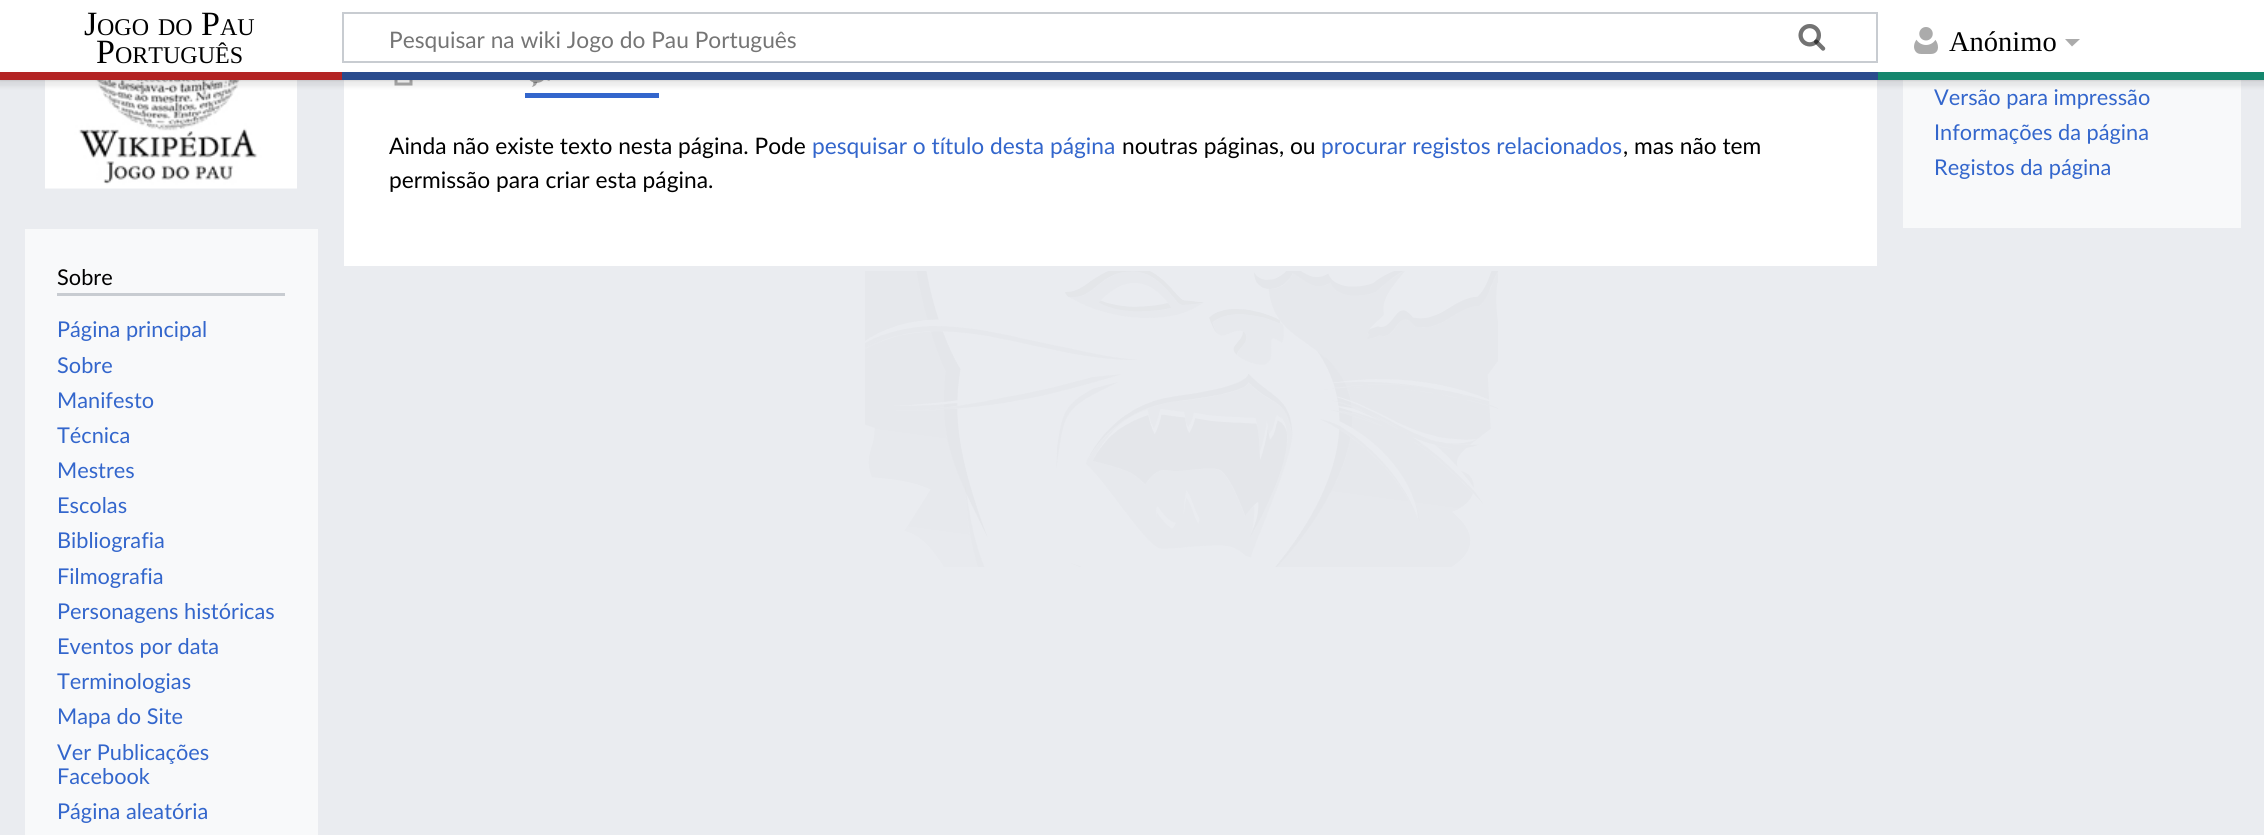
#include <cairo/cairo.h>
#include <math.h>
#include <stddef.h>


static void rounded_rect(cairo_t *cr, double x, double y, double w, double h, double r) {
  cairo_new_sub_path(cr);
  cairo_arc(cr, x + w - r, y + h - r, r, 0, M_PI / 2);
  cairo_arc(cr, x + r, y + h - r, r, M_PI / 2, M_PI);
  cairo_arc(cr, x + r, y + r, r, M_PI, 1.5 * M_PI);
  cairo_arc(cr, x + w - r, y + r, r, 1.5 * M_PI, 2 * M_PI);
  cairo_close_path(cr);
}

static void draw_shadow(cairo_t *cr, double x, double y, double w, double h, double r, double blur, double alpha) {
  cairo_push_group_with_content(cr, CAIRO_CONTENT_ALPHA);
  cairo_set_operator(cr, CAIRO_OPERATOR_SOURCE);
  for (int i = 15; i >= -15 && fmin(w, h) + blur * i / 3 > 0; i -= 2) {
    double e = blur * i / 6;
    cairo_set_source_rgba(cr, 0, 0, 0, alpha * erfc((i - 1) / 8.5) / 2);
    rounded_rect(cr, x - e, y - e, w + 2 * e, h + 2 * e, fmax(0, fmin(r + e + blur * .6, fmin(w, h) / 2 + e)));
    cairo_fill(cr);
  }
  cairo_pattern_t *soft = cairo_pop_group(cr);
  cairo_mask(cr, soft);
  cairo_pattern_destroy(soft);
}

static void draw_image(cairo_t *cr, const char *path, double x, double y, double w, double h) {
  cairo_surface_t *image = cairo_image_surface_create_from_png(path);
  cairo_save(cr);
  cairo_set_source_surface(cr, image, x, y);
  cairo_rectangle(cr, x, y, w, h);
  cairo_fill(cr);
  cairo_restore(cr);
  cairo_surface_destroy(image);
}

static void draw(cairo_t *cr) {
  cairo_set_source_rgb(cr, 234 / 255.0, 236 / 255.0, 240 / 255.0);
  cairo_paint(cr);
  cairo_set_source_rgb(cr, 1, 1, 1);
  cairo_rectangle(cr, 344, 80, 1533, 186);
  cairo_fill(cr);
  draw_image(cr, "images/5.png", 394, 80, 19, 6);
  draw_image(cr, "images/6.png", 529, 80, 21, 7);
  cairo_set_source_rgb(cr, 248 / 255.0, 249 / 255.0, 250 / 255.0);
  cairo_rectangle(cr, 1903, 80, 338, 148);
  cairo_fill(cr);
  draw_image(cr, "images/7.png", 45, 80, 252, 109);
  cairo_set_source_rgb(cr, 0, 0, 0);
  draw_shadow(cr, 0, 72, 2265, 8, 0, 1.5, 0.2);
  cairo_set_source_rgb(cr, 51 / 255.0, 102 / 255.0, 204 / 255.0);
  cairo_rectangle(cr, 525, 93, 134, 5);
  cairo_fill(cr);
  cairo_set_source_rgb(cr, 0, 0, 0);
  draw_shadow(cr, -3, 74, 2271, 13, 0, 2, 0.07);
  cairo_set_source_rgb(cr, 1, 1, 1);
  cairo_rectangle(cr, 0, 0, 2264, 72);
  cairo_fill(cr);
  cairo_rectangle(cr, 343, 13, 1534, 49);
  cairo_set_source_rgb(cr, 200 / 255.0, 204 / 255.0, 209 / 255.0);
  cairo_stroke(cr);
  draw_image(cr, "images/1.png", 1798, 24, 28, 27);
  draw_image(cr, "images/2.png", 1798, 24, 28, 27);
  draw_image(cr, "images/3.png", 1914, 27, 24, 27);
  cairo_set_source_rgb(cr, 171 / 255.0, 171 / 255.0, 171 / 255.0);
  cairo_new_path(cr);
  cairo_move_to(cr, 2080, 39);
  cairo_line_to(cr, 2072, 46.5);
  cairo_line_to(cr, 2065, 39);
  cairo_close_path(cr);
  cairo_fill(cr);
  cairo_set_source_rgb(cr, 179 / 255.0, 36 / 255.0, 36 / 255.0);
  cairo_rectangle(cr, 0, 72, 342, 8);
  cairo_fill(cr);
  cairo_set_source_rgb(cr, 42 / 255.0, 75 / 255.0, 141 / 255.0);
  cairo_rectangle(cr, 342, 72, 1536, 8);
  cairo_fill(cr);
  cairo_set_source_rgb(cr, 20 / 255.0, 134 / 255.0, 109 / 255.0);
  cairo_rectangle(cr, 1878, 72, 386, 8);
  cairo_fill(cr);
  draw_image(cr, "images/4.png", 865, 271, 633, 296);
  cairo_set_source_rgb(cr, 248 / 255.0, 249 / 255.0, 250 / 255.0);
  cairo_rectangle(cr, 25, 229, 293, 606);
  cairo_fill(cr);
  cairo_set_source_rgb(cr, 200 / 255.0, 204 / 255.0, 209 / 255.0);
  cairo_rectangle(cr, 57, 293, 228, 3);
  cairo_fill(cr);
  cairo_select_font_face(cr, "Liberation Serif", CAIRO_FONT_SLANT_NORMAL, CAIRO_FONT_WEIGHT_NORMAL);
  cairo_set_font_size(cr, 34);
  cairo_set_source_rgb(cr, 0, 0, 0);
  cairo_move_to(cr, 84, 35);
  cairo_show_text(cr, "J");
  cairo_set_font_size(cr, 24);
  cairo_move_to(cr, 97, 35);
  cairo_show_text(cr, "OGO");
  cairo_move_to(cr, 158, 35);
  cairo_show_text(cr, "DO");
  cairo_set_font_size(cr, 34);
  cairo_move_to(cr, 201, 35);
  cairo_show_text(cr, "P");
  cairo_set_font_size(cr, 24);
  cairo_move_to(cr, 220, 35);
  cairo_show_text(cr, "AU");
  cairo_set_font_size(cr, 34);
  cairo_move_to(cr, 96, 63);
  cairo_show_text(cr, "P");
  cairo_set_font_size(cr, 24);
  cairo_move_to(cr, 115, 63);
  cairo_show_text(cr, "ORTUGUÊS");
  cairo_select_font_face(cr, "Lato", CAIRO_FONT_SLANT_NORMAL, CAIRO_FONT_WEIGHT_NORMAL);
  cairo_set_font_size(cr, 22.75);
  cairo_set_source_rgb(cr, 117 / 255.0, 117 / 255.0, 117 / 255.0);
  cairo_move_to(cr, 389, 48);
  cairo_show_text(cr, "Pesquisar na wiki Jogo do Pau Português");
  cairo_select_font_face(cr, "Liberation Serif", CAIRO_FONT_SLANT_NORMAL, CAIRO_FONT_WEIGHT_NORMAL);
  cairo_set_font_size(cr, 28.5);
  cairo_set_source_rgb(cr, 0, 0, 0);
  cairo_move_to(cr, 1949, 51);
  cairo_show_text(cr, "Anónimo");
  cairo_select_font_face(cr, "Lato", CAIRO_FONT_SLANT_NORMAL, CAIRO_FONT_WEIGHT_NORMAL);
  cairo_set_font_size(cr, 22.75);
  cairo_move_to(cr, 389, 154);
  cairo_show_text(cr, "Ainda não existe texto nesta página. Pode");
  cairo_set_source_rgb(cr, 51 / 255.0, 102 / 255.0, 204 / 255.0);
  cairo_move_to(cr, 812, 154);
  cairo_show_text(cr, "pesquisar o título desta página");
  cairo_set_source_rgb(cr, 0, 0, 0);
  cairo_move_to(cr, 1122, 154);
  cairo_show_text(cr, "noutras páginas, ou");
  cairo_set_source_rgb(cr, 51 / 255.0, 102 / 255.0, 204 / 255.0);
  cairo_move_to(cr, 1321, 154);
  cairo_show_text(cr, "procurar registos relacionados");
  cairo_set_source_rgb(cr, 0, 0, 0);
  cairo_move_to(cr, 1623, 154);
  cairo_show_text(cr, ", mas não tem");
  cairo_move_to(cr, 389, 188);
  cairo_show_text(cr, "permissão para criar esta página.");
  cairo_set_font_size(cr, 21.75);
  cairo_set_source_rgb(cr, 51 / 255.0, 102 / 255.0, 204 / 255.0);
  cairo_move_to(cr, 1934, 105);
  cairo_show_text(cr, "Versão para impressão");
  cairo_move_to(cr, 1934, 140);
  cairo_show_text(cr, "Informações da página");
  cairo_move_to(cr, 1934, 175);
  cairo_show_text(cr, "Registos da página");
  cairo_set_source_rgb(cr, 0, 0, 0);
  cairo_move_to(cr, 57, 285);
  cairo_show_text(cr, "Sobre");
  cairo_set_source_rgb(cr, 51 / 255.0, 102 / 255.0, 204 / 255.0);
  cairo_move_to(cr, 57, 337);
  cairo_show_text(cr, "Página principal");
  cairo_move_to(cr, 57, 373);
  cairo_show_text(cr, "Sobre");
  cairo_move_to(cr, 57, 408);
  cairo_show_text(cr, "Manifesto");
  cairo_move_to(cr, 57, 443);
  cairo_show_text(cr, "Técnica");
  cairo_move_to(cr, 57, 478);
  cairo_show_text(cr, "Mestres");
  cairo_move_to(cr, 57, 513);
  cairo_show_text(cr, "Escolas");
  cairo_move_to(cr, 57, 548);
  cairo_show_text(cr, "Bibliografia");
  cairo_move_to(cr, 57, 584);
  cairo_show_text(cr, "Filmografia");
  cairo_move_to(cr, 57, 619);
  cairo_show_text(cr, "Personagens históricas");
  cairo_move_to(cr, 57, 654);
  cairo_show_text(cr, "Eventos por data");
  cairo_move_to(cr, 57, 689);
  cairo_show_text(cr, "Terminologias");
  cairo_move_to(cr, 57, 724);
  cairo_show_text(cr, "Mapa do Site");
  cairo_move_to(cr, 57, 760);
  cairo_show_text(cr, "Ver Publicações");
  cairo_move_to(cr, 57, 784);
  cairo_show_text(cr, "Facebook");
  cairo_move_to(cr, 57, 819);
  cairo_show_text(cr, "Página aleatória");
}

int main(void) {
  cairo_surface_t *surface = cairo_image_surface_create(CAIRO_FORMAT_RGB24, 2264, 835);
  cairo_t *cr = cairo_create(surface);
  cairo_font_options_t *options = cairo_font_options_create();
  cairo_font_options_set_hint_metrics(options, CAIRO_HINT_METRICS_OFF);
  cairo_font_options_set_hint_style(options, CAIRO_HINT_STYLE_NONE);
  cairo_set_font_options(cr, options);
  cairo_set_miter_limit(cr, 4);
  draw(cr);
  cairo_surface_write_to_png(surface, "out.png");
  cairo_font_options_destroy(options);
  cairo_destroy(cr);
  cairo_surface_destroy(surface);
  return 0;
}
